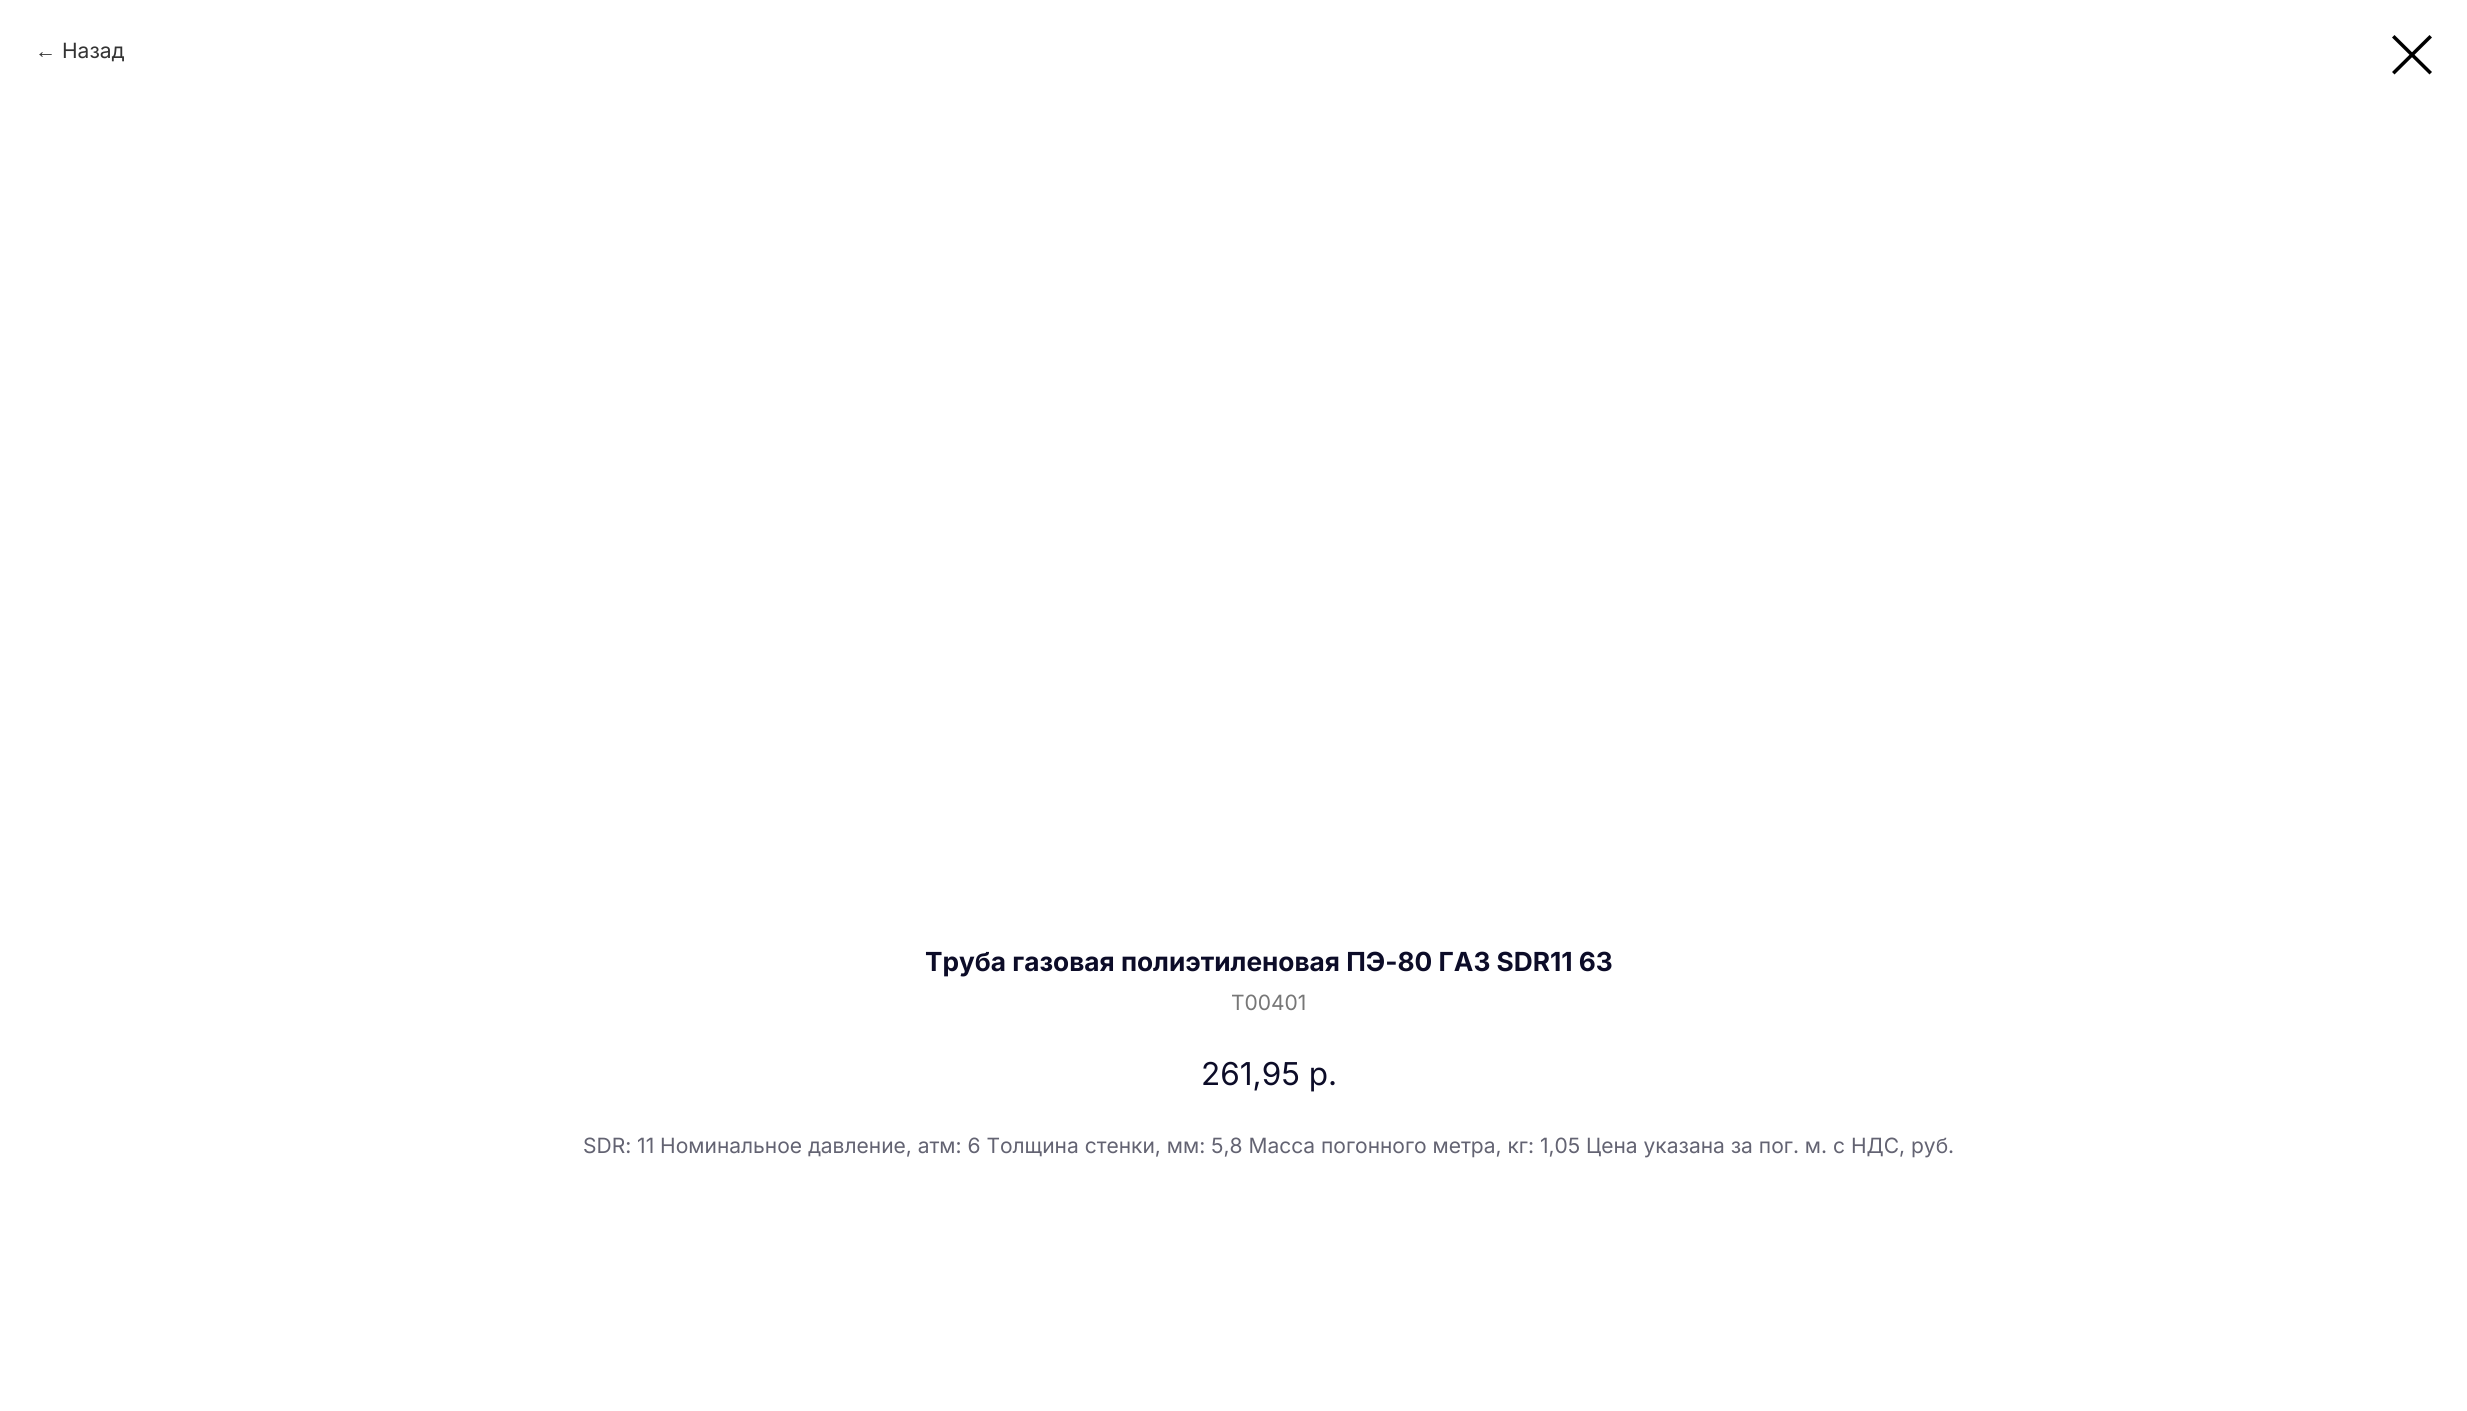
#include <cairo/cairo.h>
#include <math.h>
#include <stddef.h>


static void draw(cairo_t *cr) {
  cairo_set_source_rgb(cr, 1, 1, 1);
  cairo_paint(cr);
  cairo_set_source_rgb(cr, 0, 0, 0);
  cairo_set_fill_rule(cr, CAIRO_FILL_RULE_EVEN_ODD);
  cairo_new_path(cr);
  cairo_move_to(cr, 2392, 37.5);
  cairo_line_to(cr, 2394.5, 35);
  cairo_line_to(cr, 2432, 72);
  cairo_line_to(cr, 2429.5, 74.5);
  cairo_close_path(cr);
  cairo_fill(cr);
  cairo_new_path(cr);
  cairo_move_to(cr, 2429.5, 35);
  cairo_line_to(cr, 2432, 37.5);
  cairo_line_to(cr, 2394.5, 74.5);
  cairo_line_to(cr, 2392, 72);
  cairo_close_path(cr);
  cairo_fill(cr);
  cairo_select_font_face(cr, "Liberation Sans", CAIRO_FONT_SLANT_NORMAL, CAIRO_FONT_WEIGHT_NORMAL);
  cairo_set_font_size(cr, 21);
  cairo_set_source_rgb(cr, 51 / 255.0, 51 / 255.0, 51 / 255.0);
  cairo_move_to(cr, 35, 58);
  cairo_show_text(cr, "←");
  cairo_select_font_face(cr, "Inter", CAIRO_FONT_SLANT_NORMAL, CAIRO_FONT_WEIGHT_NORMAL);
  cairo_move_to(cr, 62, 58);
  cairo_show_text(cr, "Назад");
  cairo_select_font_face(cr, "Inter", CAIRO_FONT_SLANT_NORMAL, CAIRO_FONT_WEIGHT_BOLD);
  cairo_set_font_size(cr, 26.25);
  cairo_set_source_rgb(cr, 12 / 255.0, 12 / 255.0, 40 / 255.0);
  cairo_move_to(cr, 925, 971);
  cairo_show_text(cr, "Труба газовая полиэтиленовая ПЭ-80 ГАЗ SDR11 63");
  cairo_select_font_face(cr, "Inter", CAIRO_FONT_SLANT_NORMAL, CAIRO_FONT_WEIGHT_NORMAL);
  cairo_set_font_size(cr, 21);
  cairo_set_source_rgb(cr, 119 / 255.0, 119 / 255.0, 119 / 255.0);
  cairo_move_to(cr, 1231, 1010);
  cairo_show_text(cr, "T00401");
  cairo_set_font_size(cr, 31.5);
  cairo_set_source_rgb(cr, 12 / 255.0, 12 / 255.0, 40 / 255.0);
  cairo_move_to(cr, 1201, 1085);
  cairo_show_text(cr, "261,95 р.");
  cairo_set_font_size(cr, 21);
  cairo_set_source_rgb(cr, 99 / 255.0, 99 / 255.0, 114 / 255.0);
  cairo_move_to(cr, 583, 1153);
  cairo_show_text(cr, "SDR: 11 Номинальное давление, атм: 6 Толщина стенки, мм: 5,8 Масса погонного метра, кг: 1,05 Цена указана за пог. м. с НДС, руб.");
}

int main(void) {
  cairo_surface_t *surface = cairo_image_surface_create(CAIRO_FORMAT_RGB24, 2467, 1411);
  cairo_t *cr = cairo_create(surface);
  cairo_font_options_t *options = cairo_font_options_create();
  cairo_font_options_set_hint_metrics(options, CAIRO_HINT_METRICS_OFF);
  cairo_font_options_set_hint_style(options, CAIRO_HINT_STYLE_NONE);
  cairo_set_font_options(cr, options);
  cairo_set_miter_limit(cr, 4);
  draw(cr);
  cairo_surface_write_to_png(surface, "out.png");
  cairo_font_options_destroy(options);
  cairo_destroy(cr);
  cairo_surface_destroy(surface);
  return 0;
}
